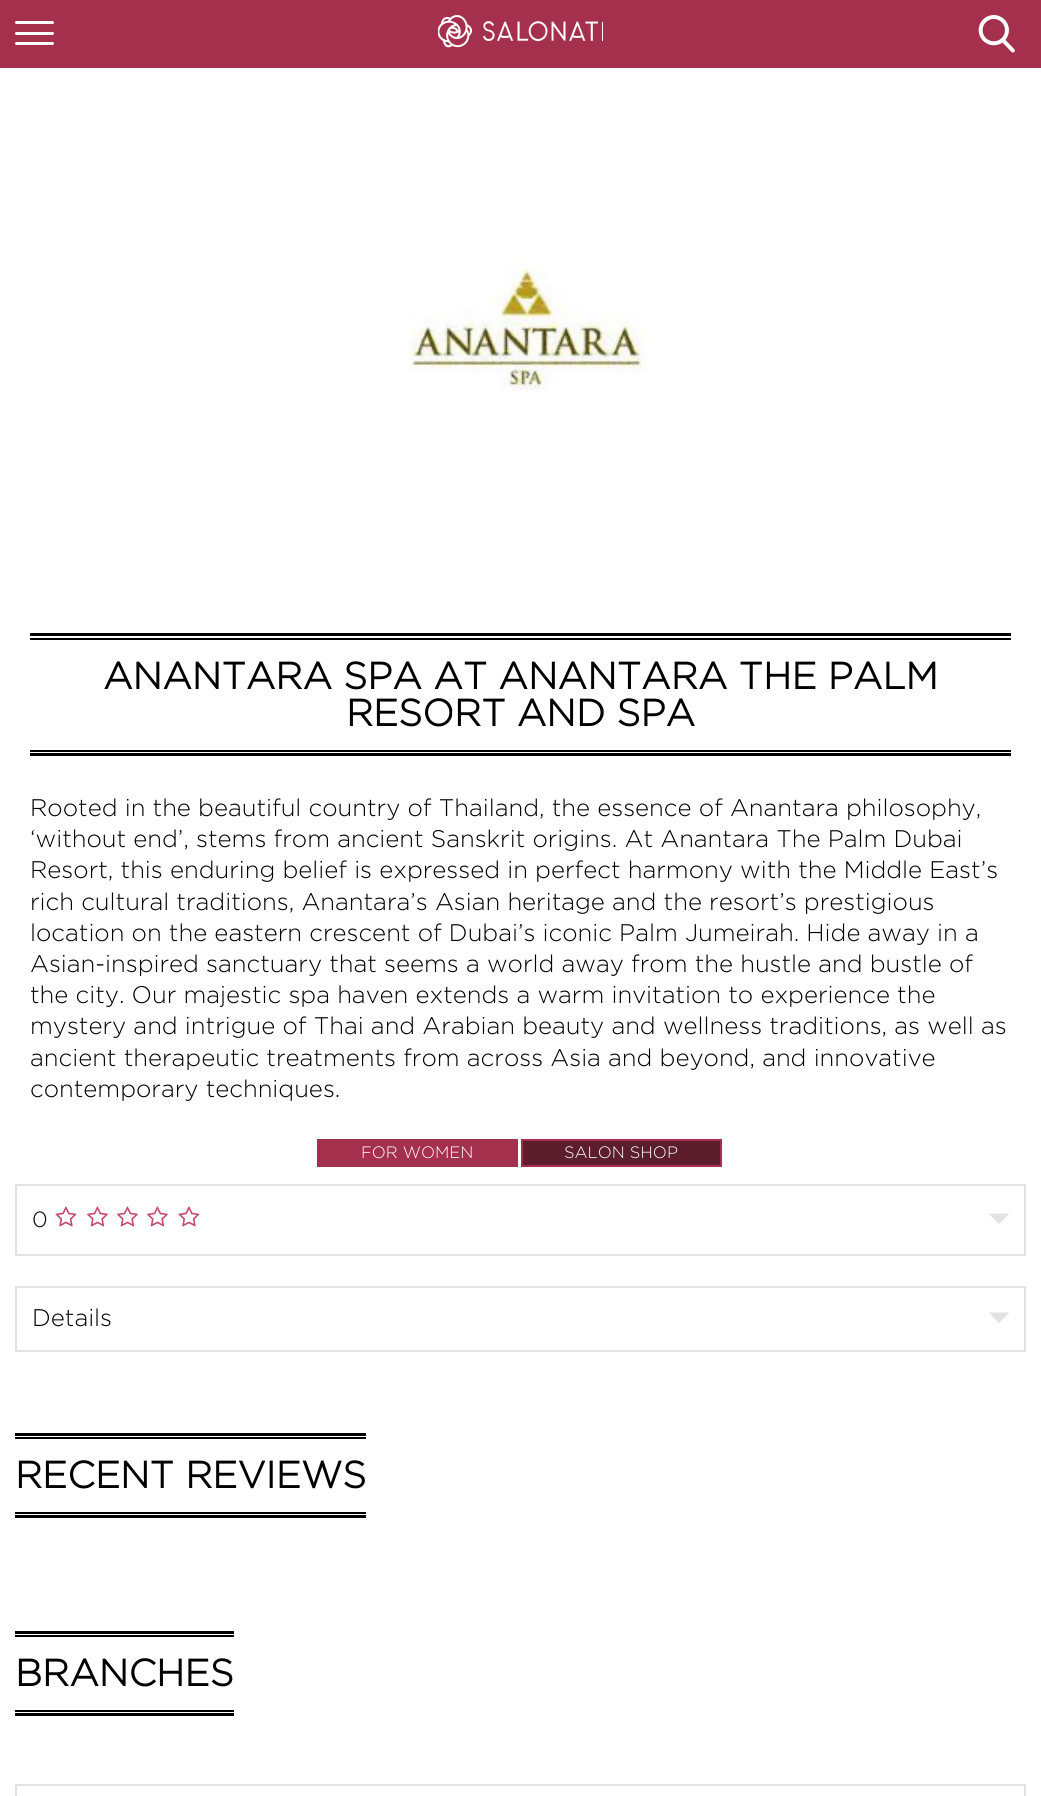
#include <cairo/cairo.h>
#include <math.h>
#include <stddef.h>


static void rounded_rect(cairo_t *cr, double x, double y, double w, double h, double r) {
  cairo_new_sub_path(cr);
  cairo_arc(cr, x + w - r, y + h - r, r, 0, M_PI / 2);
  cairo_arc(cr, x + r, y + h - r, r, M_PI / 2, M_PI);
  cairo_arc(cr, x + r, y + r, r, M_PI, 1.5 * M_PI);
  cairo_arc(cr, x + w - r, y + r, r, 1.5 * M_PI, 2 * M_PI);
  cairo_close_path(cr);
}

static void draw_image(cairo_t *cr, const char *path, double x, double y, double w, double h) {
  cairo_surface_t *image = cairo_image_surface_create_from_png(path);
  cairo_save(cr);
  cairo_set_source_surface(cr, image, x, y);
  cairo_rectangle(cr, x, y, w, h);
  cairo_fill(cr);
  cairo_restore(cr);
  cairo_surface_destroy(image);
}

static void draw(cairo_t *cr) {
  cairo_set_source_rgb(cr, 1, 1, 1);
  cairo_paint(cr);
  cairo_set_source_rgb(cr, 165 / 255.0, 48 / 255.0, 77 / 255.0);
  cairo_rectangle(cr, 0, 0, 1041, 68);
  cairo_fill(cr);
  cairo_set_source_rgb(cr, 1, 1, 1);
  rounded_rect(cr, 15, 32, 39, 3, 1.5);
  cairo_fill(cr);
  rounded_rect(cr, 15, 21, 39, 3, 1.5);
  cairo_fill(cr);
  rounded_rect(cr, 15, 42, 39, 3, 1.5);
  cairo_fill(cr);
  draw_image(cr, "images/1.png", 438, 15, 165, 33);
  draw_image(cr, "images/2.png", 978, 15, 37, 38);
  draw_image(cr, "images/3.png", 409, 255, 238, 138);
  cairo_set_source_rgb(cr, 0, 0, 0);
  cairo_rectangle(cr, 30, 633, 981, 3);
  cairo_fill(cr);
  cairo_rectangle(cr, 30, 753, 981, 3);
  cairo_fill(cr);
  cairo_rectangle(cr, 30, 638, 981, 2);
  cairo_fill(cr);
  cairo_rectangle(cr, 30, 750, 981, 2);
  cairo_fill(cr);
  cairo_set_source_rgb(cr, 165 / 255.0, 48 / 255.0, 77 / 255.0);
  cairo_rectangle(cr, 317, 1139, 201, 28);
  cairo_fill(cr);
  cairo_set_source_rgb(cr, 92 / 255.0, 30 / 255.0, 45 / 255.0);
  cairo_rectangle(cr, 522, 1140, 199, 26);
  cairo_fill_preserve(cr);
  cairo_set_source_rgb(cr, 165 / 255.0, 48 / 255.0, 77 / 255.0);
  cairo_stroke(cr);
  cairo_rectangle(cr, 16, 1185, 1009, 70);
  cairo_set_source_rgb(cr, 226 / 255.0, 226 / 255.0, 226 / 255.0);
  cairo_stroke(cr);
  draw_image(cr, "images/4.png", 55, 1206, 22, 21);
  draw_image(cr, "images/5.png", 87, 1206, 21, 21);
  draw_image(cr, "images/5.png", 117, 1206, 21, 21);
  draw_image(cr, "images/5.png", 147, 1206, 21, 21);
  draw_image(cr, "images/4.png", 178, 1206, 22, 21);
  cairo_new_path(cr);
  cairo_move_to(cr, 988.5, 1213.5);
  cairo_line_to(cr, 1009.5, 1213.5);
  cairo_line_to(cr, 999, 1224);
  cairo_close_path(cr);
  cairo_fill(cr);
  cairo_rectangle(cr, 16, 1287, 1009, 64);
  cairo_stroke(cr);
  cairo_new_path(cr);
  cairo_move_to(cr, 988.5, 1312.5);
  cairo_line_to(cr, 1009.5, 1312.5);
  cairo_line_to(cr, 999, 1323);
  cairo_close_path(cr);
  cairo_fill(cr);
  cairo_set_source_rgb(cr, 0, 0, 0);
  cairo_rectangle(cr, 15, 1433, 351, 3);
  cairo_fill(cr);
  cairo_rectangle(cr, 15, 1515, 351, 3);
  cairo_fill(cr);
  cairo_rectangle(cr, 15, 1437, 351, 2);
  cairo_fill(cr);
  cairo_rectangle(cr, 15, 1512, 351, 2);
  cairo_fill(cr);
  cairo_rectangle(cr, 15, 1631, 219, 3);
  cairo_fill(cr);
  cairo_rectangle(cr, 15, 1713, 219, 3);
  cairo_fill(cr);
  cairo_rectangle(cr, 15, 1635, 219, 2);
  cairo_fill(cr);
  cairo_rectangle(cr, 15, 1710, 219, 2);
  cairo_fill(cr);
  cairo_rectangle(cr, 16, 1785, 1009, 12);
  cairo_set_source_rgb(cr, 226 / 255.0, 226 / 255.0, 226 / 255.0);
  cairo_stroke(cr);
  cairo_select_font_face(cr, "Gotham", CAIRO_FONT_SLANT_NORMAL, CAIRO_FONT_WEIGHT_BOLD);
  cairo_set_font_size(cr, 37.5);
  cairo_set_source_rgb(cr, 0, 0, 0);
  cairo_move_to(cr, 103, 689);
  cairo_show_text(cr, "ANANTARA SPA AT ANANTARA THE PALM");
  cairo_move_to(cr, 346, 726);
  cairo_show_text(cr, "RESORT AND SPA");
  cairo_select_font_face(cr, "Gotham Light", CAIRO_FONT_SLANT_NORMAL, CAIRO_FONT_WEIGHT_NORMAL);
  cairo_set_font_size(cr, 24);
  cairo_move_to(cr, 30, 816);
  cairo_show_text(cr, "Rooted in the beautiful country of Thailand, the essence of Anantara philosophy,");
  cairo_move_to(cr, 30, 847);
  cairo_show_text(cr, "‘without end’, stems from ancient Sanskrit origins. At Anantara The Palm Dubai");
  cairo_move_to(cr, 30, 878);
  cairo_show_text(cr, "Resort, this enduring belief is expressed in perfect harmony with the Middle East’s");
  cairo_move_to(cr, 30, 910);
  cairo_show_text(cr, "rich cultural traditions, Anantara’s Asian heritage and the resort’s prestigious");
  cairo_move_to(cr, 30, 941);
  cairo_show_text(cr, "location on the eastern crescent of Dubai’s iconic Palm Jumeirah. Hide away in a");
  cairo_move_to(cr, 30, 972);
  cairo_show_text(cr, "Asian-inspired sanctuary that seems a world away from the hustle and bustle of");
  cairo_move_to(cr, 30, 1003);
  cairo_show_text(cr, "the city. Our majestic spa haven extends a warm invitation to experience the");
  cairo_move_to(cr, 30, 1034);
  cairo_show_text(cr, "mystery and intrigue of Thai and Arabian beauty and wellness traditions, as well as");
  cairo_move_to(cr, 30, 1066);
  cairo_show_text(cr, "ancient therapeutic treatments from across Asia and beyond, and innovative");
  cairo_move_to(cr, 30, 1097);
  cairo_show_text(cr, "contemporary techniques.");
  cairo_set_font_size(cr, 16.5);
  cairo_set_source_rgb(cr, 1, 1, 1);
  cairo_move_to(cr, 361, 1158);
  cairo_show_text(cr, "FOR WOMEN");
  cairo_move_to(cr, 564, 1158);
  cairo_show_text(cr, "SALON SHOP");
  cairo_set_font_size(cr, 22);
  cairo_set_source_rgb(cr, 0, 0, 0);
  cairo_move_to(cr, 32, 1227);
  cairo_show_text(cr, "0");
  cairo_set_font_size(cr, 24);
  cairo_move_to(cr, 32, 1326);
  cairo_show_text(cr, "Details");
  cairo_select_font_face(cr, "Gotham", CAIRO_FONT_SLANT_NORMAL, CAIRO_FONT_WEIGHT_BOLD);
  cairo_set_font_size(cr, 37.5);
  cairo_move_to(cr, 15, 1488);
  cairo_show_text(cr, "RECENT REVIEWS");
  cairo_move_to(cr, 15, 1686);
  cairo_show_text(cr, "BRANCHES");
}

int main(void) {
  cairo_surface_t *surface = cairo_image_surface_create(CAIRO_FORMAT_RGB24, 1041, 1796);
  cairo_t *cr = cairo_create(surface);
  cairo_font_options_t *options = cairo_font_options_create();
  cairo_font_options_set_hint_metrics(options, CAIRO_HINT_METRICS_OFF);
  cairo_font_options_set_hint_style(options, CAIRO_HINT_STYLE_NONE);
  cairo_set_font_options(cr, options);
  cairo_set_miter_limit(cr, 4);
  draw(cr);
  cairo_surface_write_to_png(surface, "out.png");
  cairo_font_options_destroy(options);
  cairo_destroy(cr);
  cairo_surface_destroy(surface);
  return 0;
}
